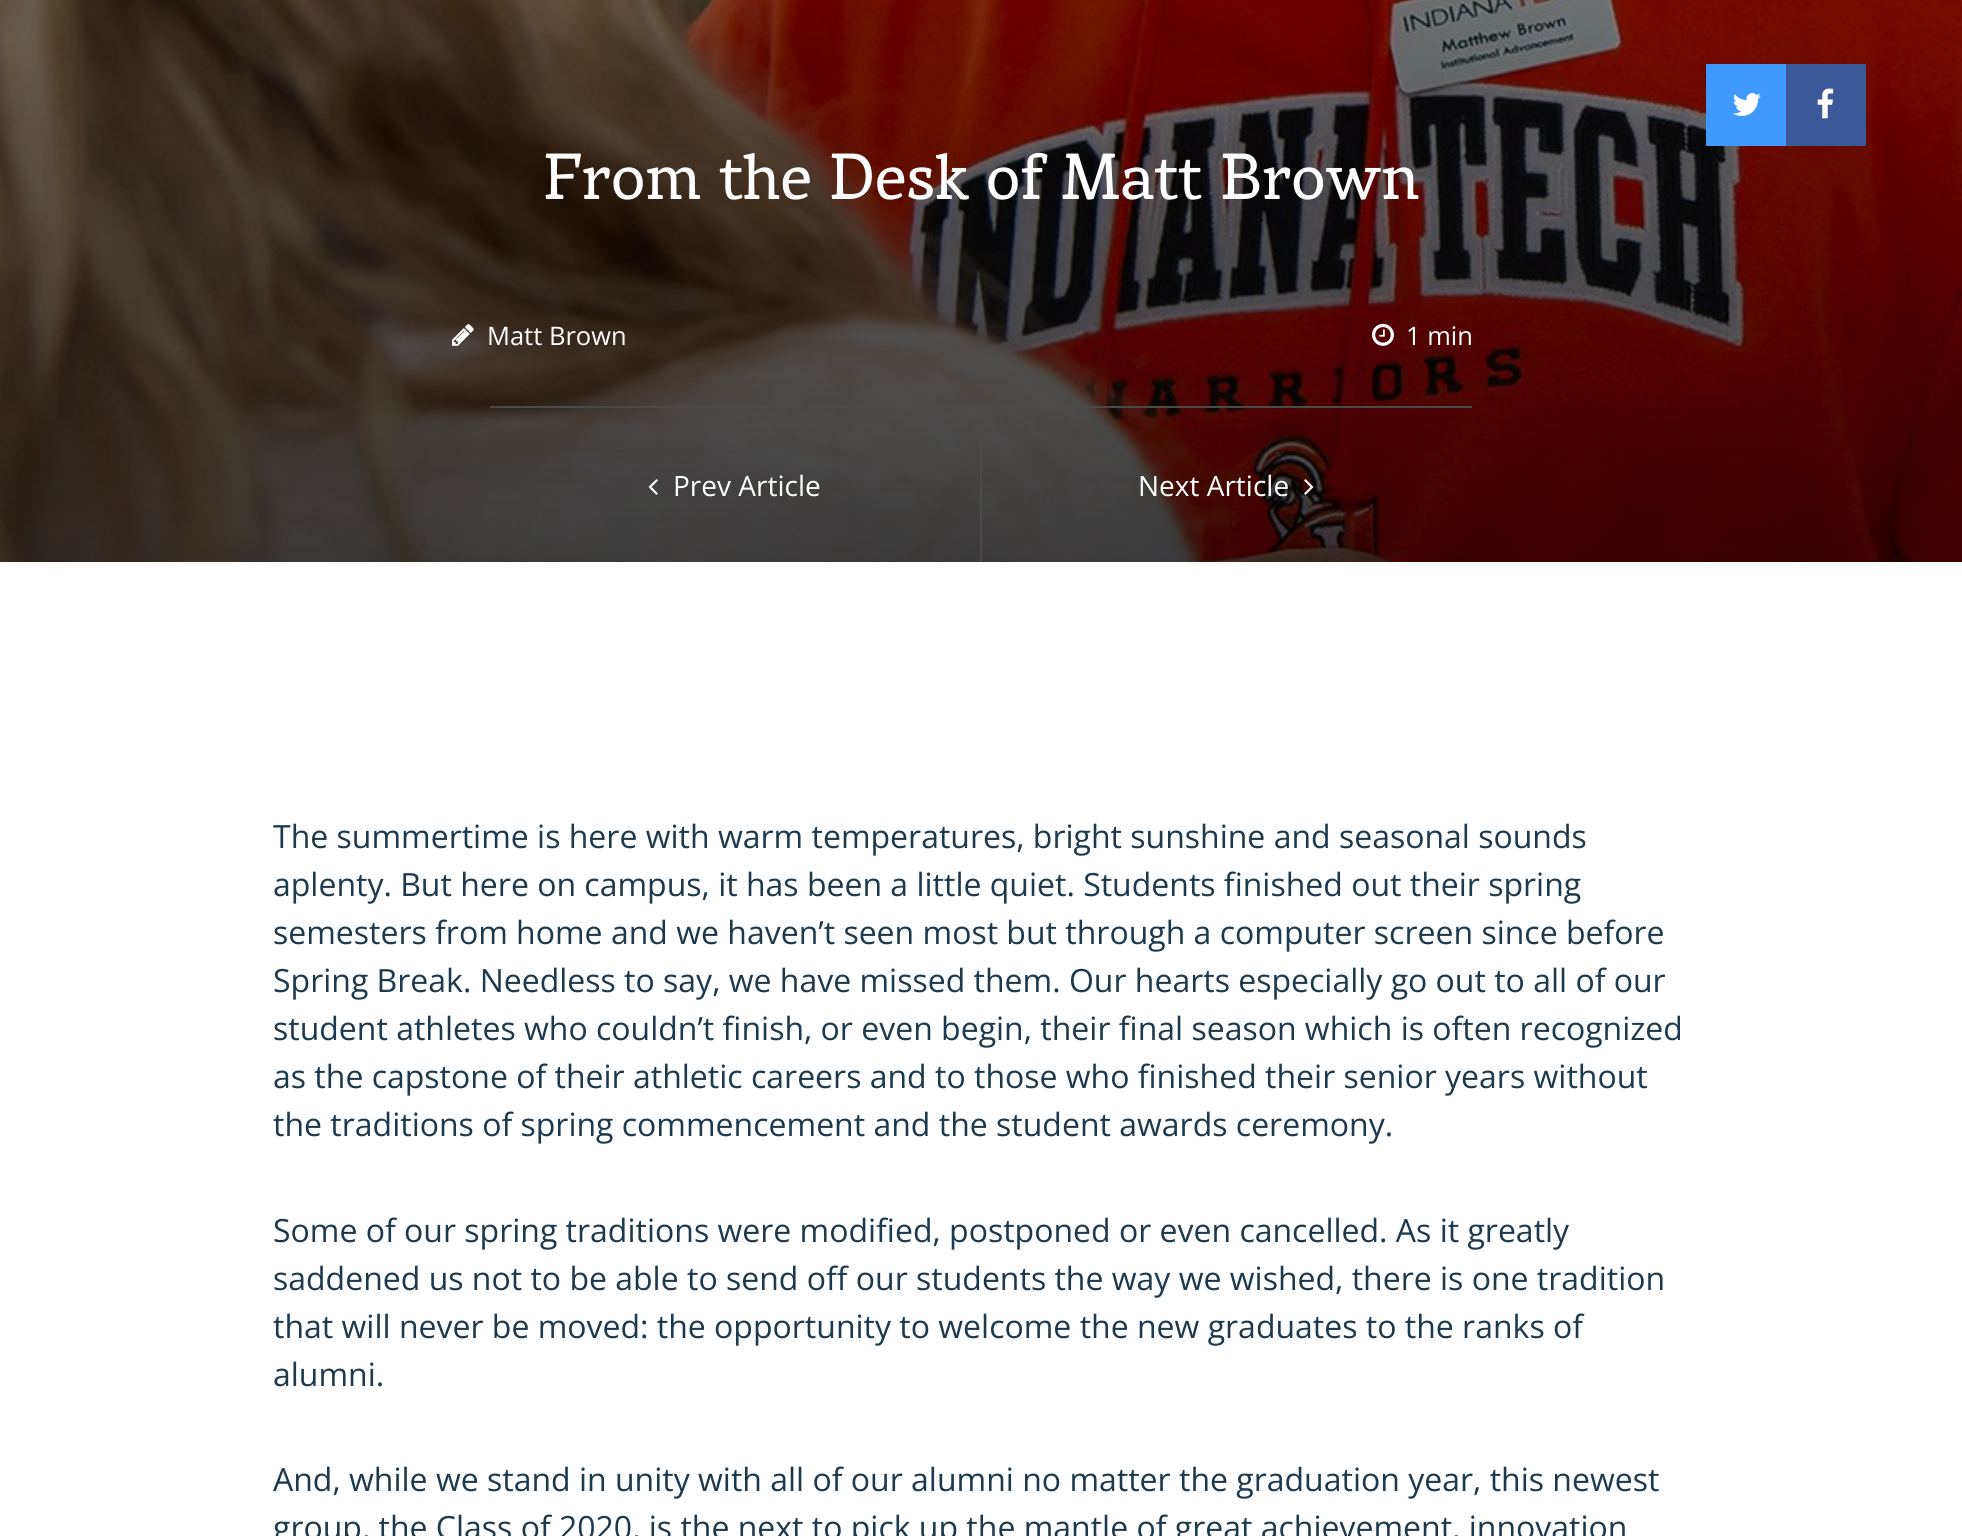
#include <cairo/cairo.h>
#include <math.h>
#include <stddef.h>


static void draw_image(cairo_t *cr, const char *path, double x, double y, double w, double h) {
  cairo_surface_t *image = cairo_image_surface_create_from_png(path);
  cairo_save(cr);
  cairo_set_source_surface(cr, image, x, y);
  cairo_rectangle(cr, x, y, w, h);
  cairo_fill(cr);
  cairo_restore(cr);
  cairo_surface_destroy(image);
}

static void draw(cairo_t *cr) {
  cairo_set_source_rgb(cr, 1, 1, 1);
  cairo_paint(cr);
  draw_image(cr, "images/3.png", 0, 0, 1962, 562);
  draw_image(cr, "images/4.png", 0, 0, 1962, 562);
  cairo_set_source_rgb(cr, 64 / 255.0, 153 / 255.0, 1);
  cairo_rectangle(cr, 1706, 64, 80, 82);
  cairo_fill(cr);
  draw_image(cr, "images/1.png", 1733, 93, 28, 23);
  cairo_set_source_rgb(cr, 59 / 255.0, 89 / 255.0, 152 / 255.0);
  cairo_rectangle(cr, 1786, 64, 80, 82);
  cairo_fill(cr);
  draw_image(cr, "images/2.png", 1817, 88, 17, 31);
  draw_image(cr, "images/5.png", 452, 324, 22, 22);
  draw_image(cr, "images/6.png", 1372, 323, 22, 23);
  cairo_set_source_rgb(cr, 74 / 255.0, 74 / 255.0, 74 / 255.0);
  cairo_rectangle(cr, 490, 406, 982, 2);
  cairo_fill(cr);
  cairo_rectangle(cr, 980, 406, 2, 156);
  cairo_fill(cr);
  draw_image(cr, "images/7.png", 648, 479, 10, 16);
  draw_image(cr, "images/8.png", 1304, 479, 10, 16);
  cairo_select_font_face(cr, "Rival", CAIRO_FONT_SLANT_NORMAL, CAIRO_FONT_WEIGHT_NORMAL);
  cairo_set_font_size(cr, 64);
  cairo_set_source_rgb(cr, 1, 1, 1);
  cairo_move_to(cr, 543, 199);
  cairo_show_text(cr, "From");
  cairo_move_to(cr, 719, 199);
  cairo_show_text(cr, "the");
  cairo_move_to(cr, 829, 199);
  cairo_show_text(cr, "Desk");
  cairo_move_to(cr, 986, 199);
  cairo_show_text(cr, "of");
  cairo_move_to(cr, 1061, 199);
  cairo_show_text(cr, "Matt");
  cairo_move_to(cr, 1220, 199);
  cairo_show_text(cr, "Brown");
  cairo_select_font_face(cr, "Open Sans", CAIRO_FONT_SLANT_NORMAL, CAIRO_FONT_WEIGHT_NORMAL);
  cairo_set_font_size(cr, 25.5);
  cairo_move_to(cr, 487, 345);
  cairo_show_text(cr, "Matt Brown");
  cairo_move_to(cr, 1406, 345);
  cairo_show_text(cr, "1 min");
  cairo_set_font_size(cr, 28);
  cairo_move_to(cr, 673, 496);
  cairo_show_text(cr, "Prev Article");
  cairo_move_to(cr, 1138, 496);
  cairo_show_text(cr, "Next Article");
  cairo_set_font_size(cr, 32);
  cairo_set_source_rgb(cr, 30 / 255.0, 56 / 255.0, 76 / 255.0);
  cairo_move_to(cr, 273, 848);
  cairo_show_text(cr, "The summertime is here with warm temperatures, bright sunshine and seasonal sounds");
  cairo_move_to(cr, 273, 896);
  cairo_show_text(cr, "aplenty. But here on campus, it has been a little quiet. Students finished out their spring");
  cairo_move_to(cr, 273, 944);
  cairo_show_text(cr, "semesters from home and we haven’t seen most but through a computer screen since before");
  cairo_move_to(cr, 273, 992);
  cairo_show_text(cr, "Spring Break. Needless to say, we have missed them. Our hearts especially go out to all of our");
  cairo_move_to(cr, 273, 1040);
  cairo_show_text(cr, "student athletes who couldn’t finish, or even begin, their final season which is often recognized");
  cairo_move_to(cr, 273, 1088);
  cairo_show_text(cr, "as the capstone of their athletic careers and to those who finished their senior years without");
  cairo_move_to(cr, 273, 1136);
  cairo_show_text(cr, "the traditions of spring commencement and the student awards ceremony.");
  cairo_move_to(cr, 273, 1242);
  cairo_show_text(cr, "Some of our spring traditions were modified, postponed or even cancelled. As it greatly");
  cairo_move_to(cr, 273, 1290);
  cairo_show_text(cr, "saddened us not to be able to send off our students the way we wished, there is one tradition");
  cairo_move_to(cr, 273, 1338);
  cairo_show_text(cr, "that will never be moved: the opportunity to welcome the new graduates to the ranks of");
  cairo_move_to(cr, 273, 1386);
  cairo_show_text(cr, "alumni.");
  cairo_move_to(cr, 273, 1491);
  cairo_show_text(cr, "And, while we stand in unity with all of our alumni no matter the graduation year, this newest");
  cairo_move_to(cr, 273, 1539);
  cairo_show_text(cr, "group, the Class of 2020, is the next to pick up the mantle of great achievement, innovation");
}

int main(void) {
  cairo_surface_t *surface = cairo_image_surface_create(CAIRO_FORMAT_RGB24, 1962, 1536);
  cairo_t *cr = cairo_create(surface);
  cairo_font_options_t *options = cairo_font_options_create();
  cairo_font_options_set_hint_metrics(options, CAIRO_HINT_METRICS_OFF);
  cairo_font_options_set_hint_style(options, CAIRO_HINT_STYLE_NONE);
  cairo_set_font_options(cr, options);
  cairo_set_miter_limit(cr, 4);
  draw(cr);
  cairo_surface_write_to_png(surface, "out.png");
  cairo_font_options_destroy(options);
  cairo_destroy(cr);
  cairo_surface_destroy(surface);
  return 0;
}
